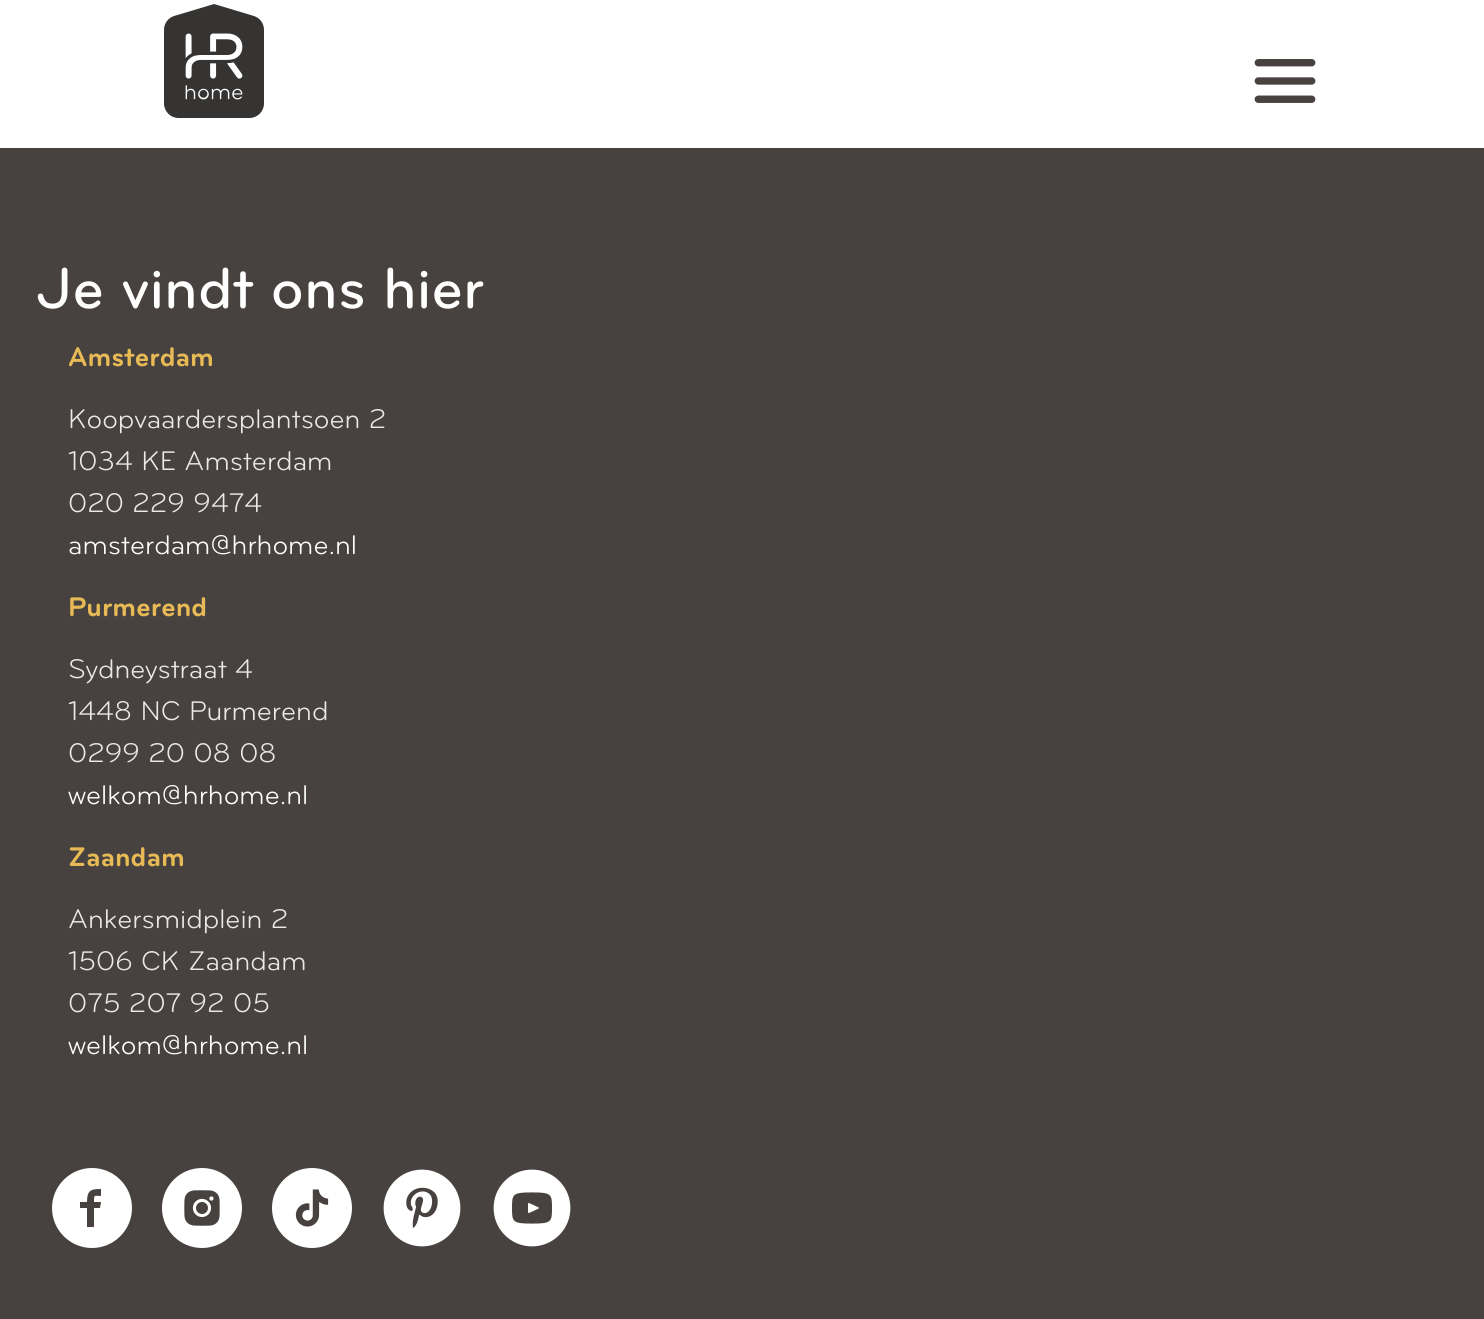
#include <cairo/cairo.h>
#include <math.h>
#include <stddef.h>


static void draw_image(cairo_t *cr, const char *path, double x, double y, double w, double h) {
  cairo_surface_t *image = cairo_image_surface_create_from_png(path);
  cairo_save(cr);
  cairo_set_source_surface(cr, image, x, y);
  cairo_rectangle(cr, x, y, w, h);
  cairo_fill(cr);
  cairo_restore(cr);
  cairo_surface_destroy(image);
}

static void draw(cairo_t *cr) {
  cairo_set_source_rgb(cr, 1, 1, 1);
  cairo_paint(cr);
  draw_image(cr, "images/1.png", 164, 4, 100, 114);
  draw_image(cr, "images/2.png", 1254, 59, 62, 44);
  cairo_set_source_rgb(cr, 71 / 255.0, 66 / 255.0, 63 / 255.0);
  cairo_rectangle(cr, 0, 148, 1484, 1171);
  cairo_fill(cr);
  cairo_set_source_rgb(cr, 1, 1, 1);
  cairo_new_path(cr);
  cairo_move_to(cr, 92, 1168);
  cairo_curve_to(cr, 70, 1168, 52, 1186, 52, 1208);
  cairo_curve_to(cr, 52, 1230, 70, 1248, 92, 1248);
  cairo_curve_to(cr, 114, 1248, 132, 1230, 132, 1208);
  cairo_curve_to(cr, 132, 1186, 114, 1168, 92, 1168);
  cairo_close_path(cr);
  cairo_move_to(cr, 101, 1196);
  cairo_curve_to(cr, 94, 1196, 94, 1194, 94, 1202);
  cairo_line_to(cr, 101, 1202);
  cairo_line_to(cr, 100, 1208);
  cairo_line_to(cr, 94, 1208);
  cairo_line_to(cr, 94, 1227);
  cairo_line_to(cr, 87, 1227);
  cairo_line_to(cr, 87, 1208);
  cairo_line_to(cr, 80, 1208);
  cairo_line_to(cr, 80, 1202);
  cairo_line_to(cr, 87, 1202);
  cairo_curve_to(cr, 87, 1190, 91, 1189, 101, 1189);
  cairo_close_path(cr);
  cairo_fill(cr);
  draw_image(cr, "images/3.png", 162, 1168, 80, 80);
  draw_image(cr, "images/4.png", 272, 1168, 80, 80);
  draw_image(cr, "images/5.png", 383, 1169, 78, 78);
  draw_image(cr, "images/6.png", 493, 1169, 78, 78);
  cairo_select_font_face(cr, "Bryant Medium", CAIRO_FONT_SLANT_NORMAL, CAIRO_FONT_WEIGHT_NORMAL);
  cairo_set_font_size(cr, 60);
  cairo_move_to(cr, 36, 308);
  cairo_show_text(cr, "Je vindt ons hier");
  cairo_select_font_face(cr, "Bryant", CAIRO_FONT_SLANT_NORMAL, CAIRO_FONT_WEIGHT_BOLD);
  cairo_set_font_size(cr, 28);
  cairo_set_source_rgb(cr, 231 / 255.0, 186 / 255.0, 86 / 255.0);
  cairo_move_to(cr, 68, 366);
  cairo_show_text(cr, "Amsterdam");
  cairo_select_font_face(cr, "Bryant", CAIRO_FONT_SLANT_NORMAL, CAIRO_FONT_WEIGHT_NORMAL);
  cairo_set_source_rgb(cr, 234 / 255.0, 233 / 255.0, 231 / 255.0);
  cairo_move_to(cr, 68, 428);
  cairo_show_text(cr, "Koopvaardersplantsoen 2");
  cairo_move_to(cr, 68, 470);
  cairo_show_text(cr, "1034 KE Amsterdam");
  cairo_move_to(cr, 68, 512);
  cairo_show_text(cr, "020 229 9474");
  cairo_set_source_rgb(cr, 1, 1, 1);
  cairo_move_to(cr, 68, 554);
  cairo_show_text(cr, "amsterdam@hrhome.nl");
  cairo_select_font_face(cr, "Bryant", CAIRO_FONT_SLANT_NORMAL, CAIRO_FONT_WEIGHT_BOLD);
  cairo_set_source_rgb(cr, 231 / 255.0, 186 / 255.0, 86 / 255.0);
  cairo_move_to(cr, 68, 616);
  cairo_show_text(cr, "Purmerend");
  cairo_select_font_face(cr, "Bryant", CAIRO_FONT_SLANT_NORMAL, CAIRO_FONT_WEIGHT_NORMAL);
  cairo_set_source_rgb(cr, 234 / 255.0, 233 / 255.0, 231 / 255.0);
  cairo_move_to(cr, 68, 678);
  cairo_show_text(cr, "Sydneystraat 4");
  cairo_move_to(cr, 68, 720);
  cairo_show_text(cr, "1448 NC Purmerend");
  cairo_move_to(cr, 68, 762);
  cairo_show_text(cr, "0299 20 08 08");
  cairo_set_source_rgb(cr, 1, 1, 1);
  cairo_move_to(cr, 68, 804);
  cairo_show_text(cr, "welkom@hrhome.nl");
  cairo_select_font_face(cr, "Bryant", CAIRO_FONT_SLANT_NORMAL, CAIRO_FONT_WEIGHT_BOLD);
  cairo_set_source_rgb(cr, 231 / 255.0, 186 / 255.0, 86 / 255.0);
  cairo_move_to(cr, 68, 866);
  cairo_show_text(cr, "Zaandam");
  cairo_select_font_face(cr, "Bryant", CAIRO_FONT_SLANT_NORMAL, CAIRO_FONT_WEIGHT_NORMAL);
  cairo_set_source_rgb(cr, 234 / 255.0, 233 / 255.0, 231 / 255.0);
  cairo_move_to(cr, 68, 928);
  cairo_show_text(cr, "Ankersmidplein 2");
  cairo_move_to(cr, 68, 970);
  cairo_show_text(cr, "1506 CK Zaandam");
  cairo_move_to(cr, 68, 1012);
  cairo_show_text(cr, "075 207 92 05");
  cairo_set_source_rgb(cr, 1, 1, 1);
  cairo_move_to(cr, 68, 1054);
  cairo_show_text(cr, "welkom@hrhome.nl");
}

int main(void) {
  cairo_surface_t *surface = cairo_image_surface_create(CAIRO_FORMAT_RGB24, 1484, 1319);
  cairo_t *cr = cairo_create(surface);
  cairo_font_options_t *options = cairo_font_options_create();
  cairo_font_options_set_hint_metrics(options, CAIRO_HINT_METRICS_OFF);
  cairo_font_options_set_hint_style(options, CAIRO_HINT_STYLE_NONE);
  cairo_set_font_options(cr, options);
  cairo_set_miter_limit(cr, 4);
  draw(cr);
  cairo_surface_write_to_png(surface, "out.png");
  cairo_font_options_destroy(options);
  cairo_destroy(cr);
  cairo_surface_destroy(surface);
  return 0;
}
